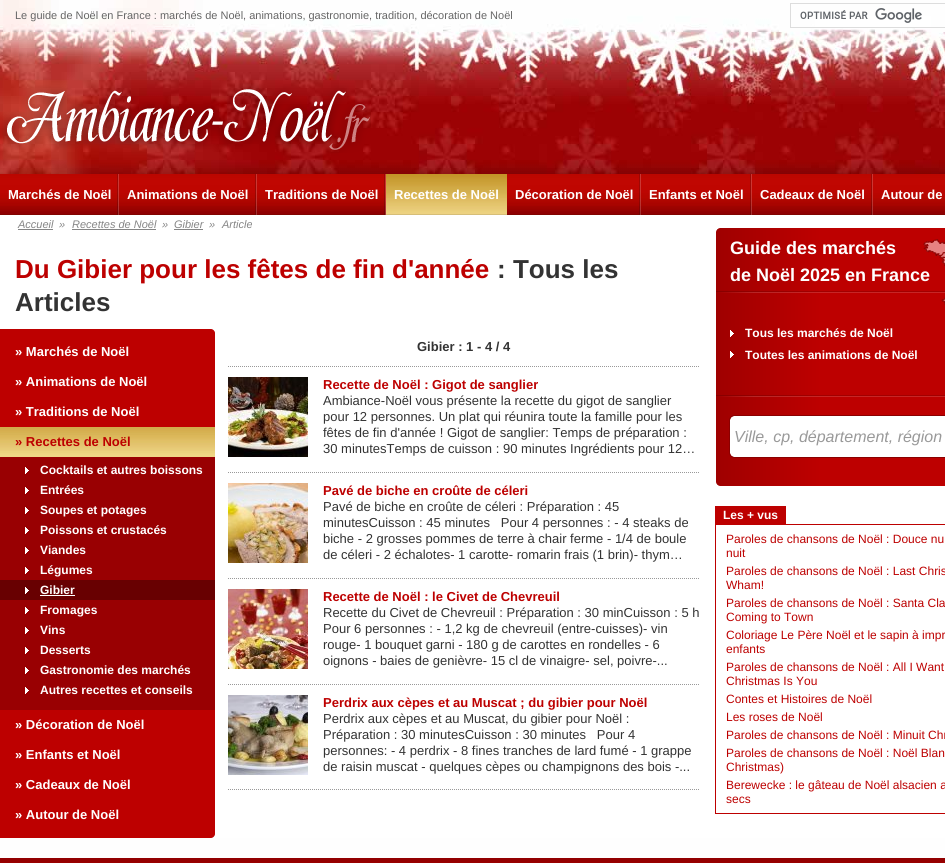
#include <cairo/cairo.h>
#include <math.h>
#include <stddef.h>


static void draw_image(cairo_t *cr, const char *path, double x, double y, double w, double h) {
  cairo_surface_t *image = cairo_image_surface_create_from_png(path);
  cairo_save(cr);
  cairo_set_source_surface(cr, image, x, y);
  cairo_rectangle(cr, x, y, w, h);
  cairo_fill(cr);
  cairo_restore(cr);
  cairo_surface_destroy(image);
}

static void draw(cairo_t *cr) {
  cairo_set_source_rgb(cr, 1, 1, 1);
  cairo_paint(cr);
  draw_image(cr, "images/1.png", 0, 838, 945, 20);
  draw_image(cr, "images/2.png", 0, 0, 945, 174);
  cairo_set_source_rgb(cr, 1, 1, 1);
  cairo_rectangle(cr, 815, 16, 116, 11);
  cairo_fill(cr);
  draw_image(cr, "images/3.png", 800, 8, 122, 15);
  cairo_rectangle(cr, 790.5, 3.5, 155, 24);
  cairo_set_source_rgb(cr, 221 / 255.0, 221 / 255.0, 221 / 255.0);
  cairo_set_line_width(cr, 1);
  cairo_stroke(cr);
  draw_image(cr, "images/4.png", 0, 83, 371, 70);
  draw_image(cr, "images/5.png", 0, 174, 945, 41);
  draw_image(cr, "images/6.png", 117, 174, 2, 41);
  draw_image(cr, "images/6.png", 255, 174, 2, 41);
  draw_image(cr, "images/6.png", 384, 174, 2, 41);
  draw_image(cr, "images/7.png", 386, 174, 121, 41);
  draw_image(cr, "images/6.png", 639, 174, 2, 41);
  draw_image(cr, "images/6.png", 750, 174, 2, 41);
  draw_image(cr, "images/6.png", 871, 174, 2, 41);
  cairo_set_source_rgb(cr, 133 / 255.0, 133 / 255.0, 133 / 255.0);
  cairo_rectangle(cr, 18, 229, 35, 1);
  cairo_fill(cr);
  cairo_rectangle(cr, 72, 229, 84, 1);
  cairo_fill(cr);
  cairo_rectangle(cr, 174, 229, 29, 1);
  cairo_fill(cr);
  cairo_set_source_rgb(cr, 189 / 255.0, 0, 0);
  cairo_new_path(cr);
  cairo_move_to(cr, 0, 329);
  cairo_line_to(cr, 211, 329);
  cairo_curve_to(cr, 213, 329, 215, 331, 215, 333);
  cairo_line_to(cr, 215, 834);
  cairo_curve_to(cr, 215, 836, 213, 838, 211, 838);
  cairo_line_to(cr, 0, 838);
  cairo_close_path(cr);
  cairo_fill(cr);
  draw_image(cr, "images/8.png", 0, 427, 215, 30);
  cairo_set_source_rgb(cr, 153 / 255.0, 0, 2 / 255.0);
  cairo_rectangle(cr, 0, 457, 215, 253);
  cairo_fill(cr);
  draw_image(cr, "images/9.png", 25, 467, 4, 7);
  draw_image(cr, "images/9.png", 25, 487, 4, 7);
  draw_image(cr, "images/9.png", 25, 507, 4, 7);
  draw_image(cr, "images/9.png", 25, 527, 4, 7);
  draw_image(cr, "images/9.png", 25, 547, 4, 7);
  draw_image(cr, "images/9.png", 25, 567, 4, 7);
  cairo_set_source_rgb(cr, 104 / 255.0, 0, 1 / 255.0);
  cairo_rectangle(cr, 0, 580, 215, 20);
  cairo_fill(cr);
  draw_image(cr, "images/10.png", 25, 587, 4, 7);
  cairo_set_source_rgb(cr, 1, 1, 1);
  cairo_rectangle(cr, 40, 595, 35, 1);
  cairo_fill(cr);
  draw_image(cr, "images/9.png", 25, 607, 4, 7);
  draw_image(cr, "images/9.png", 25, 627, 4, 7);
  draw_image(cr, "images/9.png", 25, 647, 4, 7);
  draw_image(cr, "images/9.png", 25, 667, 4, 7);
  draw_image(cr, "images/9.png", 25, 687, 4, 7);
  cairo_new_path(cr);
  cairo_move_to(cr, 228, 366.5);
  cairo_line_to(cr, 700, 366.5);
  cairo_set_source_rgb(cr, 153 / 255.0, 153 / 255.0, 153 / 255.0);
  cairo_set_dash(cr, (double[]){1, 1}, 2, 0);
  cairo_stroke(cr);
  cairo_new_path(cr);
  cairo_move_to(cr, 228, 472.5);
  cairo_line_to(cr, 700, 472.5);
  cairo_stroke(cr);
  draw_image(cr, "images/11.png", 228, 377, 80, 80);
  cairo_new_path(cr);
  cairo_move_to(cr, 228, 578.5);
  cairo_line_to(cr, 700, 578.5);
  cairo_stroke(cr);
  draw_image(cr, "images/12.png", 228, 483, 80, 80);
  cairo_new_path(cr);
  cairo_move_to(cr, 228, 684.5);
  cairo_line_to(cr, 700, 684.5);
  cairo_stroke(cr);
  draw_image(cr, "images/13.png", 228, 589, 80, 80);
  cairo_new_path(cr);
  cairo_move_to(cr, 228, 789.5);
  cairo_line_to(cr, 700, 789.5);
  cairo_stroke(cr);
  draw_image(cr, "images/14.png", 228, 695, 80, 80);
  draw_image(cr, "images/15.png", 716, 228, 229, 258);
  draw_image(cr, "images/16.png", 730, 330, 4, 7);
  draw_image(cr, "images/16.png", 730, 351, 4, 7);
  draw_image(cr, "images/17.png", 729, 415, 216, 43);
  cairo_set_source_rgb(cr, 189 / 255.0, 0, 0);
  cairo_rectangle(cr, 715, 506, 71, 18);
  cairo_fill(cr);
  cairo_rectangle(cr, 715.5, 524.5, 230, 289);
  cairo_set_dash(cr, NULL, 0, 0);
  cairo_stroke(cr);
  draw_image(cr, "images/18.png", 0, 858, 945, 5);
  cairo_select_font_face(cr, "Liberation Sans", CAIRO_FONT_SLANT_NORMAL, CAIRO_FONT_WEIGHT_NORMAL);
  cairo_set_font_size(cr, 11);
  cairo_set_source_rgb(cr, 102 / 255.0, 102 / 255.0, 102 / 255.0);
  cairo_move_to(cr, 15, 19);
  cairo_show_text(cr, "Le guide de Noël en France : marchés de Noël, animations, gastronomie, tradition, décoration de Noël");
  cairo_select_font_face(cr, "Liberation Sans", CAIRO_FONT_SLANT_NORMAL, CAIRO_FONT_WEIGHT_BOLD);
  cairo_set_font_size(cr, 13);
  cairo_set_source_rgb(cr, 1, 1, 1);
  cairo_move_to(cr, 8, 199);
  cairo_show_text(cr, "Marchés de Noël");
  cairo_move_to(cr, 127, 199);
  cairo_show_text(cr, "Animations de Noël");
  cairo_move_to(cr, 265, 199);
  cairo_show_text(cr, "Traditions de Noël");
  cairo_move_to(cr, 394, 199);
  cairo_show_text(cr, "Recettes de Noël");
  cairo_move_to(cr, 515, 199);
  cairo_show_text(cr, "Décoration de Noël");
  cairo_move_to(cr, 649, 199);
  cairo_show_text(cr, "Enfants et Noël");
  cairo_move_to(cr, 760, 199);
  cairo_show_text(cr, "Cadeaux de Noël");
  cairo_move_to(cr, 881, 199);
  cairo_show_text(cr, "Autour de");
  cairo_select_font_face(cr, "Liberation Sans", CAIRO_FONT_SLANT_ITALIC, CAIRO_FONT_WEIGHT_NORMAL);
  cairo_set_font_size(cr, 11);
  cairo_set_source_rgb(cr, 133 / 255.0, 133 / 255.0, 133 / 255.0);
  cairo_move_to(cr, 18, 228);
  cairo_show_text(cr, "Accueil");
  cairo_move_to(cr, 59, 228);
  cairo_show_text(cr, "»");
  cairo_move_to(cr, 72, 228);
  cairo_show_text(cr, "Recettes de Noël");
  cairo_move_to(cr, 162, 228);
  cairo_show_text(cr, "»");
  cairo_move_to(cr, 174, 228);
  cairo_show_text(cr, "Gibier");
  cairo_move_to(cr, 209, 228);
  cairo_show_text(cr, "»");
  cairo_move_to(cr, 222, 228);
  cairo_show_text(cr, "Article");
  cairo_select_font_face(cr, "Liberation Sans", CAIRO_FONT_SLANT_NORMAL, CAIRO_FONT_WEIGHT_BOLD);
  cairo_set_font_size(cr, 26);
  cairo_set_source_rgb(cr, 189 / 255.0, 0, 0);
  cairo_move_to(cr, 15, 278);
  cairo_show_text(cr, "Du Gibier pour les fêtes de fin d'année");
  cairo_set_source_rgb(cr, 51 / 255.0, 51 / 255.0, 51 / 255.0);
  cairo_move_to(cr, 497, 278);
  cairo_show_text(cr, ": Tous les");
  cairo_move_to(cr, 15, 311);
  cairo_show_text(cr, "Articles");
  cairo_set_font_size(cr, 13);
  cairo_set_source_rgb(cr, 1, 1, 1);
  cairo_move_to(cr, 15, 356);
  cairo_show_text(cr, "» Marchés de Noël");
  cairo_move_to(cr, 15, 386);
  cairo_show_text(cr, "» Animations de Noël");
  cairo_move_to(cr, 15, 416);
  cairo_show_text(cr, "» Traditions de Noël");
  cairo_set_source_rgb(cr, 189 / 255.0, 0, 0);
  cairo_move_to(cr, 15, 446);
  cairo_show_text(cr, "» Recettes de Noël");
  cairo_set_font_size(cr, 12);
  cairo_set_source_rgb(cr, 1, 1, 1);
  cairo_move_to(cr, 40, 474);
  cairo_show_text(cr, "Cocktails et autres boissons");
  cairo_move_to(cr, 40, 494);
  cairo_show_text(cr, "Entrées");
  cairo_move_to(cr, 40, 514);
  cairo_show_text(cr, "Soupes et potages");
  cairo_move_to(cr, 40, 534);
  cairo_show_text(cr, "Poissons et crustacés");
  cairo_move_to(cr, 40, 554);
  cairo_show_text(cr, "Viandes");
  cairo_move_to(cr, 40, 574);
  cairo_show_text(cr, "Légumes");
  cairo_move_to(cr, 40, 594);
  cairo_show_text(cr, "Gibier");
  cairo_move_to(cr, 40, 614);
  cairo_show_text(cr, "Fromages");
  cairo_move_to(cr, 40, 634);
  cairo_show_text(cr, "Vins");
  cairo_move_to(cr, 40, 654);
  cairo_show_text(cr, "Desserts");
  cairo_move_to(cr, 40, 674);
  cairo_show_text(cr, "Gastronomie des marchés");
  cairo_move_to(cr, 40, 694);
  cairo_show_text(cr, "Autres recettes et conseils");
  cairo_set_font_size(cr, 13);
  cairo_move_to(cr, 15, 729);
  cairo_show_text(cr, "» Décoration de Noël");
  cairo_move_to(cr, 15, 759);
  cairo_show_text(cr, "» Enfants et Noël");
  cairo_move_to(cr, 15, 789);
  cairo_show_text(cr, "» Cadeaux de Noël");
  cairo_move_to(cr, 15, 819);
  cairo_show_text(cr, "» Autour de Noël");
  cairo_set_source_rgb(cr, 51 / 255.0, 51 / 255.0, 51 / 255.0);
  cairo_move_to(cr, 417, 351);
  cairo_show_text(cr, "Gibier : 1 - 4 / 4");
  cairo_set_source_rgb(cr, 189 / 255.0, 0, 0);
  cairo_move_to(cr, 323, 389);
  cairo_show_text(cr, "Recette de Noël : Gigot de sanglier");
  cairo_select_font_face(cr, "Liberation Sans", CAIRO_FONT_SLANT_NORMAL, CAIRO_FONT_WEIGHT_NORMAL);
  cairo_set_source_rgb(cr, 51 / 255.0, 51 / 255.0, 51 / 255.0);
  cairo_move_to(cr, 323, 405);
  cairo_show_text(cr, "Ambiance-Noël vous présente la recette du gigot de sanglier");
  cairo_move_to(cr, 323, 421);
  cairo_show_text(cr, "pour 12 personnes. Un plat qui réunira toute la famille pour les");
  cairo_move_to(cr, 323, 437);
  cairo_show_text(cr, "fêtes de fin d'année ! Gigot de sanglier: Temps de préparation :");
  cairo_move_to(cr, 323, 453);
  cairo_show_text(cr, "30 minutesTemps de cuisson : 90 minutes Ingrédients pour 12…");
  cairo_select_font_face(cr, "Liberation Sans", CAIRO_FONT_SLANT_NORMAL, CAIRO_FONT_WEIGHT_BOLD);
  cairo_set_source_rgb(cr, 189 / 255.0, 0, 0);
  cairo_move_to(cr, 323, 495);
  cairo_show_text(cr, "Pavé de biche en croûte de céleri");
  cairo_select_font_face(cr, "Liberation Sans", CAIRO_FONT_SLANT_NORMAL, CAIRO_FONT_WEIGHT_NORMAL);
  cairo_set_source_rgb(cr, 51 / 255.0, 51 / 255.0, 51 / 255.0);
  cairo_move_to(cr, 323, 511);
  cairo_show_text(cr, "Pavé de biche en croûte de céleri : Préparation : 45");
  cairo_move_to(cr, 323, 527);
  cairo_show_text(cr, "minutesCuisson : 45 minutes   Pour 4 personnes : - 4 steaks de");
  cairo_move_to(cr, 323, 543);
  cairo_show_text(cr, "biche - 2 grosses pommes de terre à chair ferme - 1/4 de boule");
  cairo_move_to(cr, 323, 559);
  cairo_show_text(cr, "de céleri - 2 échalotes- 1 carotte- romarin frais (1 brin)- thym…");
  cairo_select_font_face(cr, "Liberation Sans", CAIRO_FONT_SLANT_NORMAL, CAIRO_FONT_WEIGHT_BOLD);
  cairo_set_source_rgb(cr, 189 / 255.0, 0, 0);
  cairo_move_to(cr, 323, 601);
  cairo_show_text(cr, "Recette de Noël : le Civet de Chevreuil");
  cairo_select_font_face(cr, "Liberation Sans", CAIRO_FONT_SLANT_NORMAL, CAIRO_FONT_WEIGHT_NORMAL);
  cairo_set_source_rgb(cr, 51 / 255.0, 51 / 255.0, 51 / 255.0);
  cairo_move_to(cr, 323, 617);
  cairo_show_text(cr, "Recette du Civet de Chevreuil : Préparation : 30 minCuisson : 5 h");
  cairo_move_to(cr, 323, 633);
  cairo_show_text(cr, "Pour 6 personnes : - 1,2 kg de chevreuil (entre-cuisses)- vin");
  cairo_move_to(cr, 323, 649);
  cairo_show_text(cr, "rouge- 1 bouquet garni - 180 g de carottes en rondelles - 6");
  cairo_move_to(cr, 323, 665);
  cairo_show_text(cr, "oignons - baies de genièvre- 15 cl de vinaigre- sel, poivre-...");
  cairo_select_font_face(cr, "Liberation Sans", CAIRO_FONT_SLANT_NORMAL, CAIRO_FONT_WEIGHT_BOLD);
  cairo_set_source_rgb(cr, 189 / 255.0, 0, 0);
  cairo_move_to(cr, 323, 707);
  cairo_show_text(cr, "Perdrix aux cèpes et au Muscat ; du gibier pour Noël");
  cairo_select_font_face(cr, "Liberation Sans", CAIRO_FONT_SLANT_NORMAL, CAIRO_FONT_WEIGHT_NORMAL);
  cairo_set_source_rgb(cr, 51 / 255.0, 51 / 255.0, 51 / 255.0);
  cairo_move_to(cr, 323, 723);
  cairo_show_text(cr, "Perdrix aux cèpes et au Muscat, du gibier pour Noël :");
  cairo_move_to(cr, 323, 739);
  cairo_show_text(cr, "Préparation : 30 minutesCuisson : 30 minutes   Pour 4");
  cairo_move_to(cr, 323, 755);
  cairo_show_text(cr, "personnes: - 4 perdrix - 8 fines tranches de lard fumé - 1 grappe");
  cairo_move_to(cr, 323, 771);
  cairo_show_text(cr, "de raisin muscat - quelques cèpes ou champignons des bois -...");
  cairo_select_font_face(cr, "Liberation Sans", CAIRO_FONT_SLANT_NORMAL, CAIRO_FONT_WEIGHT_BOLD);
  cairo_set_font_size(cr, 18);
  cairo_set_source_rgb(cr, 1, 1, 1);
  cairo_move_to(cr, 730, 254);
  cairo_show_text(cr, "Guide des marchés");
  cairo_move_to(cr, 730, 281);
  cairo_show_text(cr, "de Noël 2025 en France");
  cairo_set_font_size(cr, 12);
  cairo_move_to(cr, 745, 337);
  cairo_show_text(cr, "Tous les marchés de Noël");
  cairo_move_to(cr, 745, 359);
  cairo_show_text(cr, "Toutes les animations de Noël");
  cairo_select_font_face(cr, "Liberation Sans", CAIRO_FONT_SLANT_ITALIC, CAIRO_FONT_WEIGHT_NORMAL);
  cairo_set_font_size(cr, 16);
  cairo_set_source_rgb(cr, 153 / 255.0, 153 / 255.0, 153 / 255.0);
  cairo_move_to(cr, 734, 442);
  cairo_show_text(cr, "Ville, cp, département, région");
  cairo_select_font_face(cr, "Liberation Sans", CAIRO_FONT_SLANT_NORMAL, CAIRO_FONT_WEIGHT_BOLD);
  cairo_set_font_size(cr, 12);
  cairo_set_source_rgb(cr, 1, 1, 1);
  cairo_move_to(cr, 723, 519);
  cairo_show_text(cr, "Les + vus");
  cairo_select_font_face(cr, "Liberation Sans", CAIRO_FONT_SLANT_NORMAL, CAIRO_FONT_WEIGHT_NORMAL);
  cairo_set_source_rgb(cr, 189 / 255.0, 0, 0);
  cairo_move_to(cr, 726, 543);
  cairo_show_text(cr, "Paroles de chansons de Noël : Douce nu");
  cairo_move_to(cr, 726, 557);
  cairo_show_text(cr, "nuit");
  cairo_move_to(cr, 726, 575);
  cairo_show_text(cr, "Paroles de chansons de Noël : Last Chris");
  cairo_move_to(cr, 726, 589);
  cairo_show_text(cr, "Wham!");
  cairo_move_to(cr, 726, 607);
  cairo_show_text(cr, "Paroles de chansons de Noël : Santa Cla");
  cairo_move_to(cr, 726, 621);
  cairo_show_text(cr, "Coming to Town");
  cairo_move_to(cr, 726, 639);
  cairo_show_text(cr, "Coloriage Le Père Noël et le sapin à impr");
  cairo_move_to(cr, 726, 653);
  cairo_show_text(cr, "enfants");
  cairo_move_to(cr, 726, 671);
  cairo_show_text(cr, "Paroles de chansons de Noël : All I Want");
  cairo_move_to(cr, 726, 685);
  cairo_show_text(cr, "Christmas Is You");
  cairo_move_to(cr, 726, 703);
  cairo_show_text(cr, "Contes et Histoires de Noël");
  cairo_move_to(cr, 726, 721);
  cairo_show_text(cr, "Les roses de Noël");
  cairo_move_to(cr, 726, 739);
  cairo_show_text(cr, "Paroles de chansons de Noël : Minuit Chr");
  cairo_move_to(cr, 726, 757);
  cairo_show_text(cr, "Paroles de chansons de Noël : Noël Blan");
  cairo_move_to(cr, 726, 771);
  cairo_show_text(cr, "Christmas)");
  cairo_move_to(cr, 726, 789);
  cairo_show_text(cr, "Berewecke : le gâteau de Noël alsacien a");
  cairo_move_to(cr, 726, 803);
  cairo_show_text(cr, "secs");
}

int main(void) {
  cairo_surface_t *surface = cairo_image_surface_create(CAIRO_FORMAT_RGB24, 945, 863);
  cairo_t *cr = cairo_create(surface);
  cairo_font_options_t *options = cairo_font_options_create();
  cairo_font_options_set_hint_metrics(options, CAIRO_HINT_METRICS_OFF);
  cairo_font_options_set_hint_style(options, CAIRO_HINT_STYLE_NONE);
  cairo_set_font_options(cr, options);
  cairo_set_miter_limit(cr, 4);
  draw(cr);
  cairo_surface_write_to_png(surface, "out.png");
  cairo_font_options_destroy(options);
  cairo_destroy(cr);
  cairo_surface_destroy(surface);
  return 0;
}
